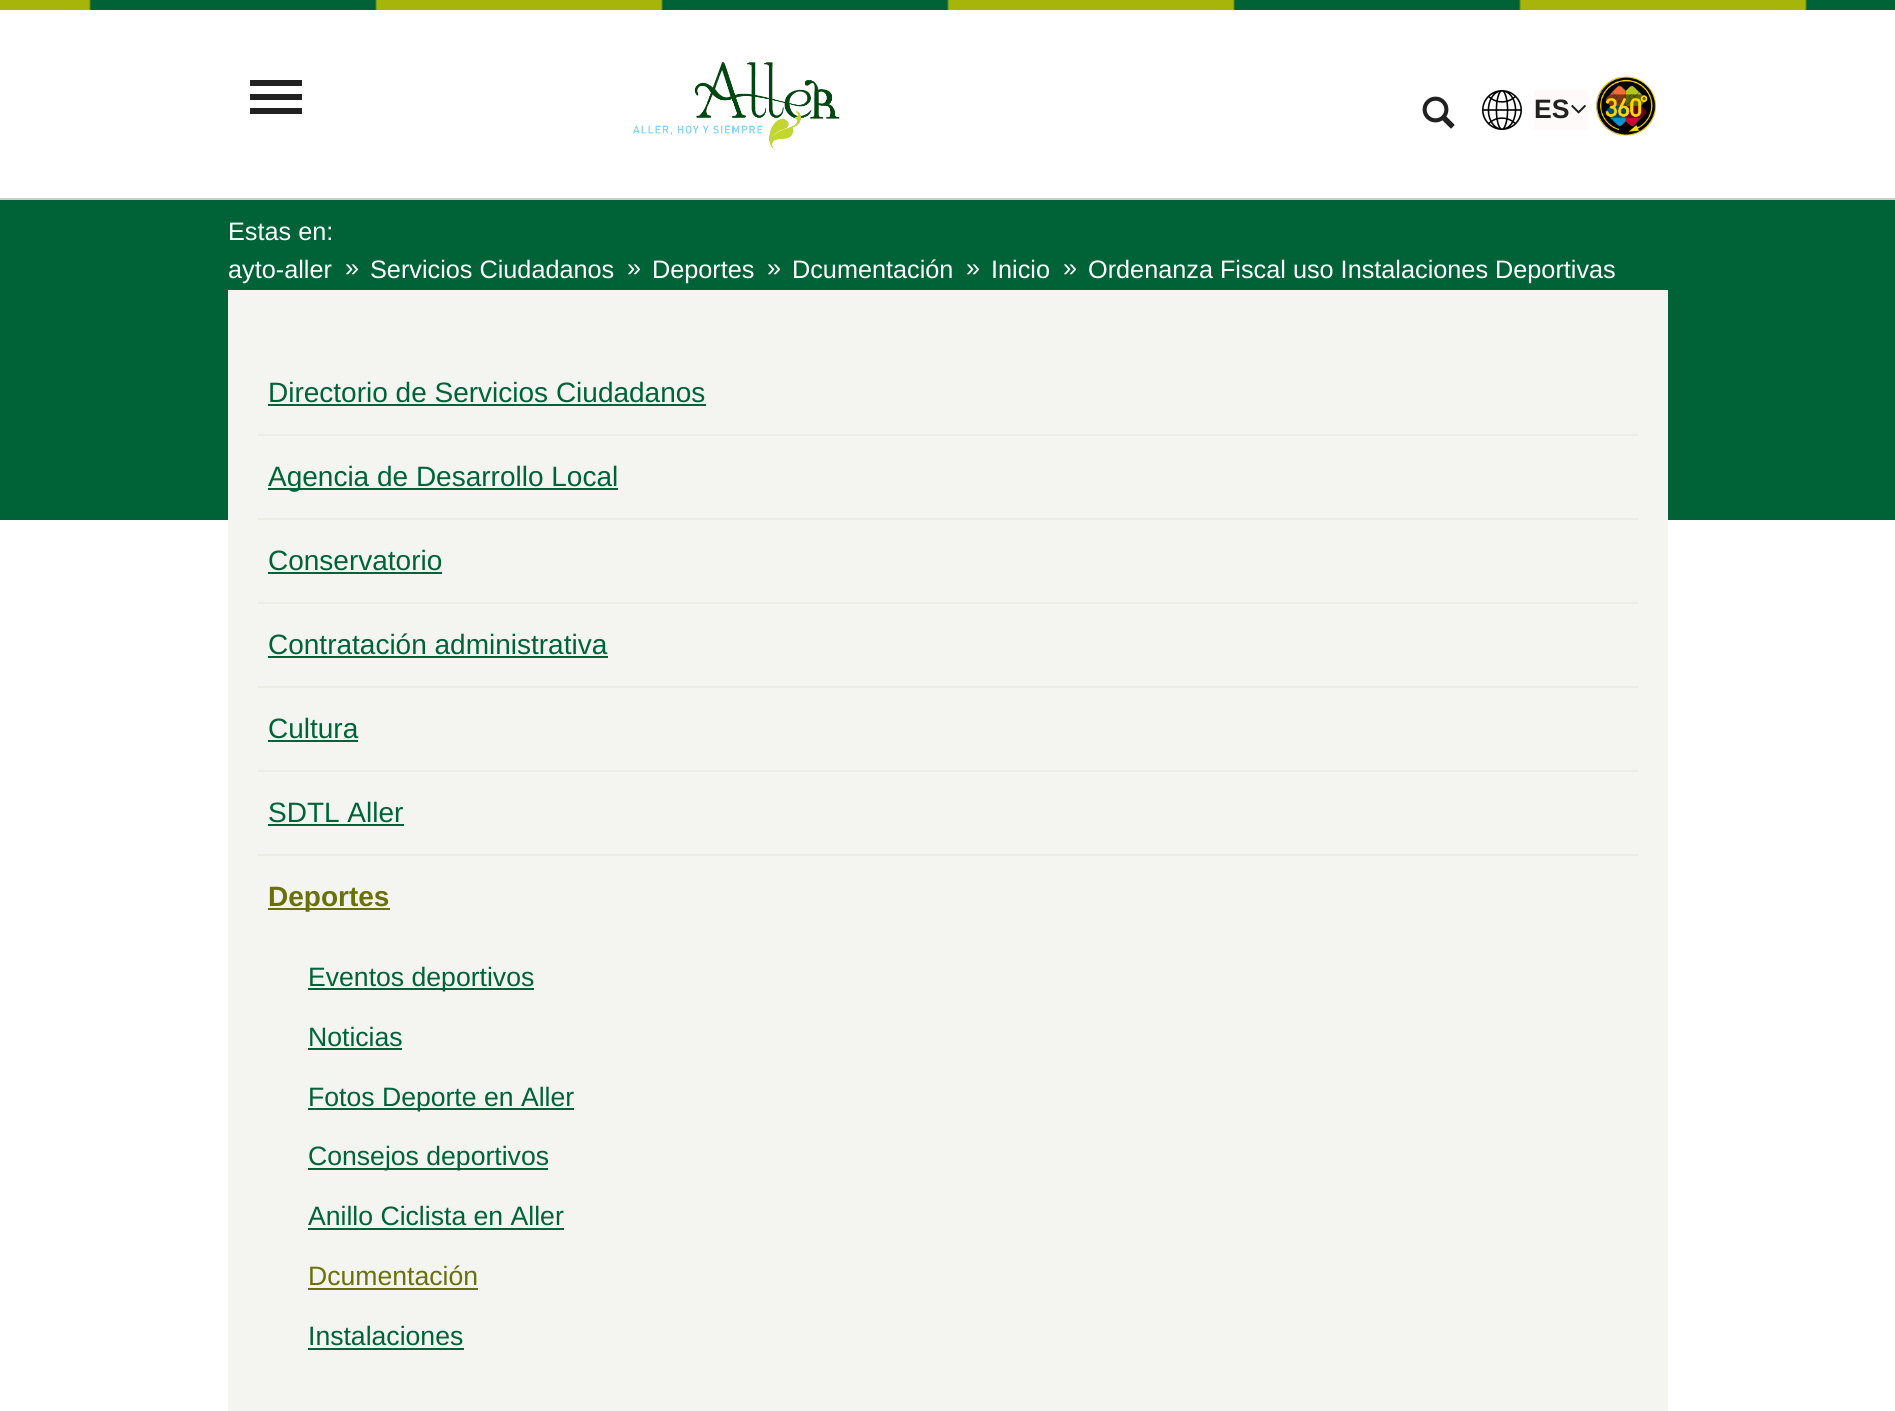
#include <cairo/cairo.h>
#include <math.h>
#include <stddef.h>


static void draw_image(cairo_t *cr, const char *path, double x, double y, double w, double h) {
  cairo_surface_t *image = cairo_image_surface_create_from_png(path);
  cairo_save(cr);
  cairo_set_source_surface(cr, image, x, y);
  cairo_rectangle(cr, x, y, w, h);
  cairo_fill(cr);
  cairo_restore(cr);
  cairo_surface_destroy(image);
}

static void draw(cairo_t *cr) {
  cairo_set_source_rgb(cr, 1, 1, 1);
  cairo_paint(cr);
  draw_image(cr, "images/1.png", 0, 0, 1895, 10);
  cairo_set_source_rgb(cr, 204 / 255.0, 204 / 255.0, 204 / 255.0);
  cairo_rectangle(cr, 0, 198, 1895, 2);
  cairo_fill(cr);
  cairo_set_source_rgb(cr, 33 / 255.0, 33 / 255.0, 33 / 255.0);
  cairo_rectangle(cr, 250, 80, 52, 6);
  cairo_fill(cr);
  cairo_rectangle(cr, 250, 94, 52, 6);
  cairo_fill(cr);
  cairo_rectangle(cr, 250, 108, 52, 6);
  cairo_fill(cr);
  draw_image(cr, "images/2.png", 633, 62, 207, 89);
  draw_image(cr, "images/3.png", 1422, 96, 33, 33);
  draw_image(cr, "images/4.png", 1482, 90, 40, 40);
  cairo_set_source_rgb(cr, 1, 250 / 255.0, 250 / 255.0);
  cairo_rectangle(cr, 1534, 90, 54, 40);
  cairo_fill(cr);
  draw_image(cr, "images/5.png", 1571, 104, 15, 10);
  draw_image(cr, "images/6.png", 1596, 76, 60, 60);
  cairo_set_source_rgb(cr, 0, 99 / 255.0, 56 / 255.0);
  cairo_rectangle(cr, 0, 200, 1895, 320);
  cairo_fill(cr);
  cairo_set_source_rgb(cr, 244 / 255.0, 244 / 255.0, 240 / 255.0);
  cairo_rectangle(cr, 228, 290, 1440, 1121);
  cairo_fill(cr);
  cairo_set_source_rgb(cr, 236 / 255.0, 236 / 255.0, 229 / 255.0);
  cairo_rectangle(cr, 258, 434, 1380, 2);
  cairo_fill(cr);
  cairo_set_source_rgb(cr, 0, 99 / 255.0, 56 / 255.0);
  cairo_rectangle(cr, 268, 404, 438, 2);
  cairo_fill(cr);
  cairo_set_source_rgb(cr, 236 / 255.0, 236 / 255.0, 229 / 255.0);
  cairo_rectangle(cr, 258, 518, 1380, 2);
  cairo_fill(cr);
  cairo_set_source_rgb(cr, 0, 99 / 255.0, 56 / 255.0);
  cairo_rectangle(cr, 268, 488, 350, 2);
  cairo_fill(cr);
  cairo_set_source_rgb(cr, 236 / 255.0, 236 / 255.0, 229 / 255.0);
  cairo_rectangle(cr, 258, 602, 1380, 2);
  cairo_fill(cr);
  cairo_set_source_rgb(cr, 0, 99 / 255.0, 56 / 255.0);
  cairo_rectangle(cr, 268, 572, 174, 2);
  cairo_fill(cr);
  cairo_set_source_rgb(cr, 236 / 255.0, 236 / 255.0, 229 / 255.0);
  cairo_rectangle(cr, 258, 686, 1380, 2);
  cairo_fill(cr);
  cairo_set_source_rgb(cr, 0, 99 / 255.0, 56 / 255.0);
  cairo_rectangle(cr, 268, 656, 340, 2);
  cairo_fill(cr);
  cairo_set_source_rgb(cr, 236 / 255.0, 236 / 255.0, 229 / 255.0);
  cairo_rectangle(cr, 258, 770, 1380, 2);
  cairo_fill(cr);
  cairo_set_source_rgb(cr, 0, 99 / 255.0, 56 / 255.0);
  cairo_rectangle(cr, 268, 740, 90, 2);
  cairo_fill(cr);
  cairo_set_source_rgb(cr, 236 / 255.0, 236 / 255.0, 229 / 255.0);
  cairo_rectangle(cr, 258, 854, 1380, 2);
  cairo_fill(cr);
  cairo_set_source_rgb(cr, 0, 99 / 255.0, 56 / 255.0);
  cairo_rectangle(cr, 268, 824, 136, 2);
  cairo_fill(cr);
  cairo_set_source_rgb(cr, 105 / 255.0, 114 / 255.0, 9 / 255.0);
  cairo_rectangle(cr, 268, 908, 122, 2);
  cairo_fill(cr);
  cairo_set_source_rgb(cr, 0, 99 / 255.0, 56 / 255.0);
  cairo_rectangle(cr, 308, 988, 226, 2);
  cairo_fill(cr);
  cairo_rectangle(cr, 308, 1048, 94, 2);
  cairo_fill(cr);
  cairo_rectangle(cr, 308, 1108, 266, 2);
  cairo_fill(cr);
  cairo_rectangle(cr, 308, 1168, 240, 2);
  cairo_fill(cr);
  cairo_rectangle(cr, 308, 1228, 256, 2);
  cairo_fill(cr);
  cairo_set_source_rgb(cr, 105 / 255.0, 114 / 255.0, 9 / 255.0);
  cairo_rectangle(cr, 308, 1288, 170, 2);
  cairo_fill(cr);
  cairo_set_source_rgb(cr, 0, 99 / 255.0, 56 / 255.0);
  cairo_rectangle(cr, 308, 1348, 156, 2);
  cairo_fill(cr);
  cairo_select_font_face(cr, "Liberation Sans", CAIRO_FONT_SLANT_NORMAL, CAIRO_FONT_WEIGHT_BOLD);
  cairo_set_font_size(cr, 26.6);
  cairo_set_source_rgb(cr, 33 / 255.0, 33 / 255.0, 33 / 255.0);
  cairo_move_to(cr, 1534, 118);
  cairo_show_text(cr, "ES");
  cairo_select_font_face(cr, "Liberation Sans", CAIRO_FONT_SLANT_NORMAL, CAIRO_FONT_WEIGHT_NORMAL);
  cairo_set_font_size(cr, 25.25);
  cairo_set_source_rgb(cr, 1, 1, 1);
  cairo_move_to(cr, 228, 240);
  cairo_show_text(cr, "Estas en:");
  cairo_move_to(cr, 228, 278);
  cairo_show_text(cr, "ayto-aller");
  cairo_move_to(cr, 345, 276);
  cairo_show_text(cr, "»");
  cairo_move_to(cr, 370, 278);
  cairo_show_text(cr, "Servicios Ciudadanos");
  cairo_move_to(cr, 627, 276);
  cairo_show_text(cr, "»");
  cairo_move_to(cr, 652, 278);
  cairo_show_text(cr, "Deportes");
  cairo_move_to(cr, 767, 276);
  cairo_show_text(cr, "»");
  cairo_move_to(cr, 792, 278);
  cairo_show_text(cr, "Dcumentación");
  cairo_move_to(cr, 966, 276);
  cairo_show_text(cr, "»");
  cairo_move_to(cr, 991, 278);
  cairo_show_text(cr, "Inicio");
  cairo_move_to(cr, 1063, 276);
  cairo_show_text(cr, "»");
  cairo_move_to(cr, 1088, 278);
  cairo_show_text(cr, "Ordenanza Fiscal uso Instalaciones Deportivas");
  cairo_set_font_size(cr, 28);
  cairo_set_source_rgb(cr, 0, 99 / 255.0, 56 / 255.0);
  cairo_move_to(cr, 268, 402);
  cairo_show_text(cr, "Directorio de Servicios Ciudadanos");
  cairo_move_to(cr, 268, 486);
  cairo_show_text(cr, "Agencia de Desarrollo Local");
  cairo_move_to(cr, 268, 570);
  cairo_show_text(cr, "Conservatorio");
  cairo_move_to(cr, 268, 654);
  cairo_show_text(cr, "Contratación administrativa");
  cairo_move_to(cr, 268, 738);
  cairo_show_text(cr, "Cultura");
  cairo_move_to(cr, 268, 822);
  cairo_show_text(cr, "SDTL Aller");
  cairo_select_font_face(cr, "Liberation Sans", CAIRO_FONT_SLANT_NORMAL, CAIRO_FONT_WEIGHT_BOLD);
  cairo_set_source_rgb(cr, 105 / 255.0, 114 / 255.0, 9 / 255.0);
  cairo_move_to(cr, 268, 906);
  cairo_show_text(cr, "Deportes");
  cairo_select_font_face(cr, "Liberation Sans", CAIRO_FONT_SLANT_NORMAL, CAIRO_FONT_WEIGHT_NORMAL);
  cairo_set_font_size(cr, 26.6);
  cairo_set_source_rgb(cr, 0, 99 / 255.0, 56 / 255.0);
  cairo_move_to(cr, 308, 986);
  cairo_show_text(cr, "Eventos deportivos");
  cairo_move_to(cr, 308, 1046);
  cairo_show_text(cr, "Noticias");
  cairo_move_to(cr, 308, 1106);
  cairo_show_text(cr, "Fotos Deporte en Aller");
  cairo_move_to(cr, 308, 1165);
  cairo_show_text(cr, "Consejos deportivos");
  cairo_move_to(cr, 308, 1225);
  cairo_show_text(cr, "Anillo Ciclista en Aller");
  cairo_set_source_rgb(cr, 105 / 255.0, 114 / 255.0, 9 / 255.0);
  cairo_move_to(cr, 308, 1285);
  cairo_show_text(cr, "Dcumentación");
  cairo_set_source_rgb(cr, 0, 99 / 255.0, 56 / 255.0);
  cairo_move_to(cr, 308, 1345);
  cairo_show_text(cr, "Instalaciones");
}

int main(void) {
  cairo_surface_t *surface = cairo_image_surface_create(CAIRO_FORMAT_RGB24, 1895, 1411);
  cairo_t *cr = cairo_create(surface);
  cairo_font_options_t *options = cairo_font_options_create();
  cairo_font_options_set_hint_metrics(options, CAIRO_HINT_METRICS_OFF);
  cairo_font_options_set_hint_style(options, CAIRO_HINT_STYLE_NONE);
  cairo_set_font_options(cr, options);
  cairo_set_miter_limit(cr, 4);
  draw(cr);
  cairo_surface_write_to_png(surface, "out.png");
  cairo_font_options_destroy(options);
  cairo_destroy(cr);
  cairo_surface_destroy(surface);
  return 0;
}
